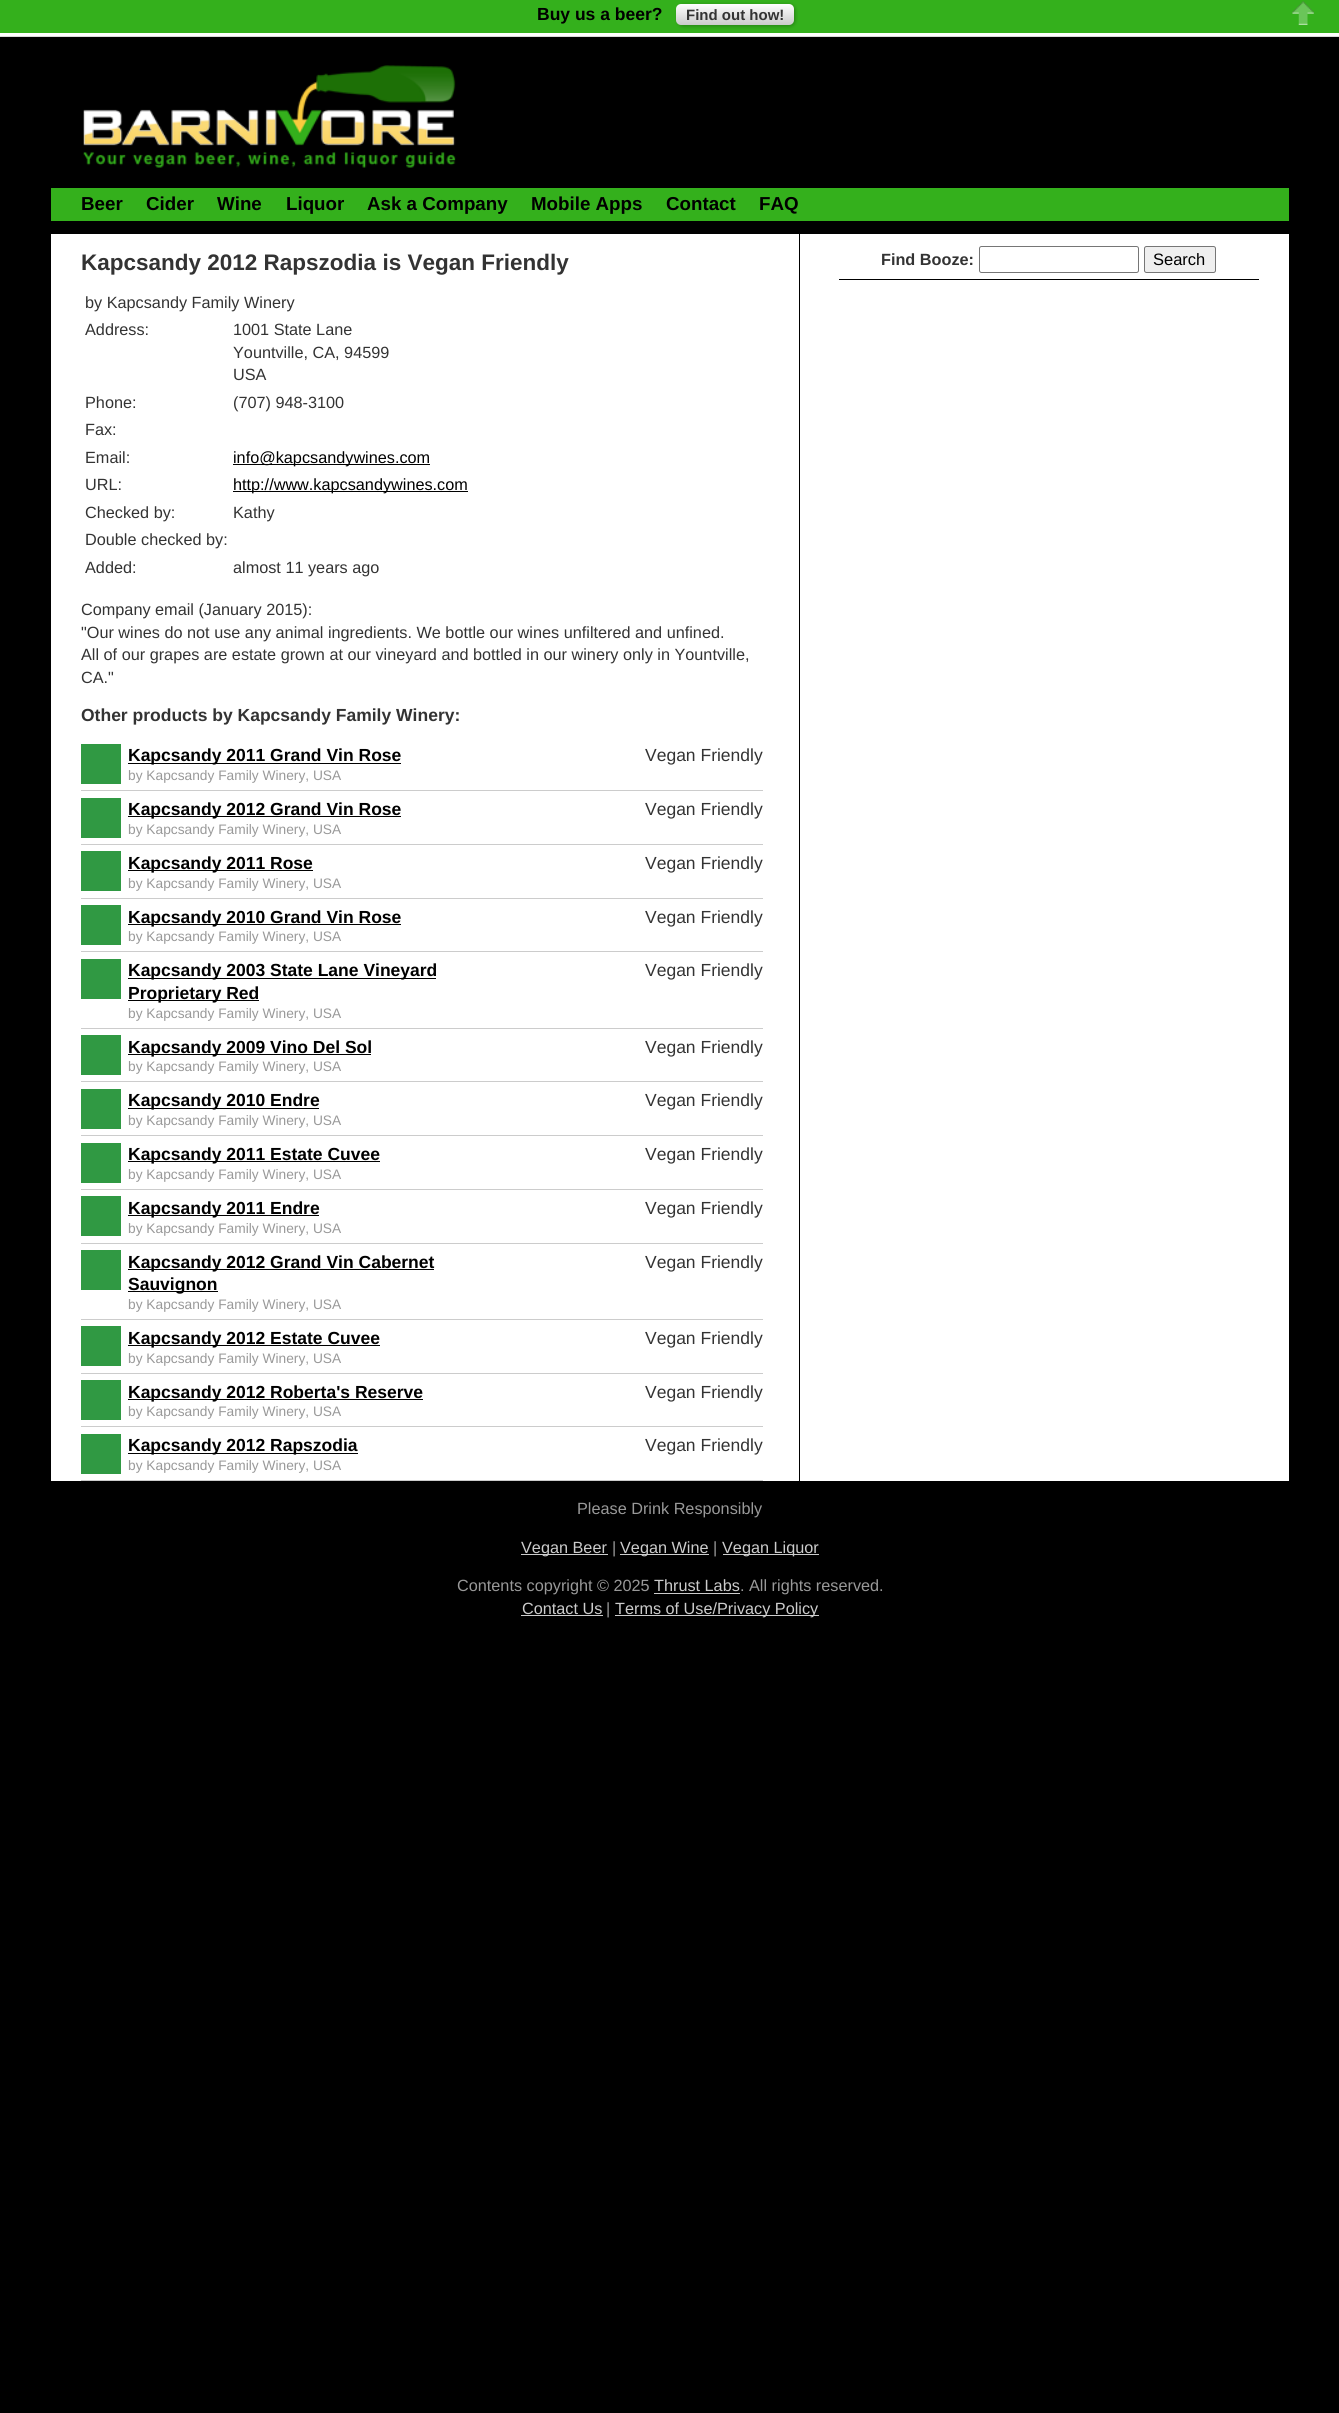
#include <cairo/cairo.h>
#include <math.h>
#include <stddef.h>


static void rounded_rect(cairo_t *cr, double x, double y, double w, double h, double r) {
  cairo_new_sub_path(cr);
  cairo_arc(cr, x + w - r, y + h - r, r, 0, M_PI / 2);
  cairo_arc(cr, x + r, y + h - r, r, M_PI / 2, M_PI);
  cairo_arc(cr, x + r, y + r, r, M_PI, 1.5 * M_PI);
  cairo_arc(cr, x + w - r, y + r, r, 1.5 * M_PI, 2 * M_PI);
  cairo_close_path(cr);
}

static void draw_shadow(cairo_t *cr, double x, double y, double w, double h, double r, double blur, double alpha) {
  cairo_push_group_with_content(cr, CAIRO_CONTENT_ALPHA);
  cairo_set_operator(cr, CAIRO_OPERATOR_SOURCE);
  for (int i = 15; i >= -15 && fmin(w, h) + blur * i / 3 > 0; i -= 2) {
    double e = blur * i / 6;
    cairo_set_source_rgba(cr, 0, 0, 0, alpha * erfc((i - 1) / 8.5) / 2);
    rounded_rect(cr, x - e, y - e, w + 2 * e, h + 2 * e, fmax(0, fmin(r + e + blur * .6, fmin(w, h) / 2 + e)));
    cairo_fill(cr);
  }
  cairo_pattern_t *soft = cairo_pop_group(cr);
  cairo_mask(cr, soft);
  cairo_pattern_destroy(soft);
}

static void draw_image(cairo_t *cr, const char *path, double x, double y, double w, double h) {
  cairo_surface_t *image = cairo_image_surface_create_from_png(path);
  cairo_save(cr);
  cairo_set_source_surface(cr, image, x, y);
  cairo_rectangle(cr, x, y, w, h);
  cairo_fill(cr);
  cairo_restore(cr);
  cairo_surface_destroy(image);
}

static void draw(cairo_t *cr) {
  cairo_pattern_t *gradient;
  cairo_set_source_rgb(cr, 0, 0, 0);
  cairo_paint(cr);
  cairo_set_source_rgb(cr, 52 / 255.0, 176 / 255.0, 28 / 255.0);
  cairo_rectangle(cr, 0, 0, 1339, 33);
  cairo_fill(cr);
  cairo_set_source_rgb(cr, 1, 1, 1);
  cairo_rectangle(cr, 0, 33, 1339, 3);
  cairo_fill(cr);
  cairo_set_source_rgb(cr, 0, 0, 0);
  draw_shadow(cr, 678, 5, 117, 21, 5, 2, 0.28);
  gradient = cairo_pattern_create_linear(735, 3.7, 735, 25);
  cairo_pattern_add_color_stop_rgba(gradient, 0, 1, 1, 1, 1);
  cairo_pattern_add_color_stop_rgba(gradient, 1, 203 / 255.0, 203 / 255.0, 203 / 255.0, 1);
  cairo_set_source(cr, gradient);
  cairo_pattern_destroy(gradient);
  rounded_rect(cr, 676, 4, 118, 21, 5);
  cairo_fill(cr);
  draw_image(cr, "images/1.png", 1292, 1, 22, 24);
  cairo_set_source_rgb(cr, 219 / 255.0, 219 / 255.0, 219 / 255.0);
  cairo_rectangle(cr, 0, 36, 1339, 1);
  cairo_fill(cr);
  draw_image(cr, "images/2.png", 83, 65, 373, 103);
  cairo_set_source_rgb(cr, 52 / 255.0, 176 / 255.0, 28 / 255.0);
  cairo_rectangle(cr, 51, 188, 1238, 33);
  cairo_fill(cr);
  cairo_set_source_rgb(cr, 1, 1, 1);
  cairo_rectangle(cr, 51, 234, 1238, 1247);
  cairo_fill(cr);
  cairo_set_source_rgb(cr, 0, 0, 0);
  cairo_rectangle(cr, 799, 234, 1, 1247);
  cairo_fill(cr);
  cairo_rectangle(cr, 233, 464, 197, 1);
  cairo_fill(cr);
  cairo_rectangle(cr, 233, 491, 235, 1);
  cairo_fill(cr);
  cairo_set_source_rgb(cr, 204 / 255.0, 204 / 255.0, 204 / 255.0);
  cairo_rectangle(cr, 81, 790, 682, 1);
  cairo_fill(cr);
  cairo_set_source_rgb(cr, 48 / 255.0, 153 / 255.0, 67 / 255.0);
  cairo_rectangle(cr, 81, 744, 40, 40);
  cairo_fill(cr);
  cairo_set_source_rgb(cr, 0, 0, 0);
  cairo_rectangle(cr, 128, 763, 273, 1);
  cairo_fill(cr);
  cairo_set_source_rgb(cr, 204 / 255.0, 204 / 255.0, 204 / 255.0);
  cairo_rectangle(cr, 81, 844, 682, 1);
  cairo_fill(cr);
  cairo_set_source_rgb(cr, 48 / 255.0, 153 / 255.0, 67 / 255.0);
  cairo_rectangle(cr, 81, 798, 40, 40);
  cairo_fill(cr);
  cairo_set_source_rgb(cr, 0, 0, 0);
  cairo_rectangle(cr, 128, 816, 273, 1);
  cairo_fill(cr);
  cairo_set_source_rgb(cr, 204 / 255.0, 204 / 255.0, 204 / 255.0);
  cairo_rectangle(cr, 81, 898, 682, 1);
  cairo_fill(cr);
  cairo_set_source_rgb(cr, 48 / 255.0, 153 / 255.0, 67 / 255.0);
  cairo_rectangle(cr, 81, 851, 40, 40);
  cairo_fill(cr);
  cairo_set_source_rgb(cr, 0, 0, 0);
  cairo_rectangle(cr, 128, 870, 185, 1);
  cairo_fill(cr);
  cairo_set_source_rgb(cr, 204 / 255.0, 204 / 255.0, 204 / 255.0);
  cairo_rectangle(cr, 81, 951, 682, 1);
  cairo_fill(cr);
  cairo_set_source_rgb(cr, 48 / 255.0, 153 / 255.0, 67 / 255.0);
  cairo_rectangle(cr, 81, 905, 40, 40);
  cairo_fill(cr);
  cairo_set_source_rgb(cr, 0, 0, 0);
  cairo_rectangle(cr, 128, 924, 273, 1);
  cairo_fill(cr);
  cairo_set_source_rgb(cr, 204 / 255.0, 204 / 255.0, 204 / 255.0);
  cairo_rectangle(cr, 81, 1028, 682, 1);
  cairo_fill(cr);
  cairo_set_source_rgb(cr, 48 / 255.0, 153 / 255.0, 67 / 255.0);
  cairo_rectangle(cr, 81, 959, 40, 40);
  cairo_fill(cr);
  cairo_set_source_rgb(cr, 0, 0, 0);
  cairo_rectangle(cr, 128, 978, 308, 1);
  cairo_fill(cr);
  cairo_rectangle(cr, 128, 1000, 131, 1);
  cairo_fill(cr);
  cairo_set_source_rgb(cr, 204 / 255.0, 204 / 255.0, 204 / 255.0);
  cairo_rectangle(cr, 81, 1081, 682, 1);
  cairo_fill(cr);
  cairo_set_source_rgb(cr, 48 / 255.0, 153 / 255.0, 67 / 255.0);
  cairo_rectangle(cr, 81, 1035, 40, 40);
  cairo_fill(cr);
  cairo_set_source_rgb(cr, 0, 0, 0);
  cairo_rectangle(cr, 128, 1054, 243, 1);
  cairo_fill(cr);
  cairo_set_source_rgb(cr, 204 / 255.0, 204 / 255.0, 204 / 255.0);
  cairo_rectangle(cr, 81, 1135, 682, 1);
  cairo_fill(cr);
  cairo_set_source_rgb(cr, 48 / 255.0, 153 / 255.0, 67 / 255.0);
  cairo_rectangle(cr, 81, 1089, 40, 40);
  cairo_fill(cr);
  cairo_set_source_rgb(cr, 0, 0, 0);
  cairo_rectangle(cr, 128, 1108, 191, 1);
  cairo_fill(cr);
  cairo_set_source_rgb(cr, 204 / 255.0, 204 / 255.0, 204 / 255.0);
  cairo_rectangle(cr, 81, 1189, 682, 1);
  cairo_fill(cr);
  cairo_set_source_rgb(cr, 48 / 255.0, 153 / 255.0, 67 / 255.0);
  cairo_rectangle(cr, 81, 1143, 40, 40);
  cairo_fill(cr);
  cairo_set_source_rgb(cr, 0, 0, 0);
  cairo_rectangle(cr, 128, 1161, 252, 1);
  cairo_fill(cr);
  cairo_set_source_rgb(cr, 204 / 255.0, 204 / 255.0, 204 / 255.0);
  cairo_rectangle(cr, 81, 1243, 682, 1);
  cairo_fill(cr);
  cairo_set_source_rgb(cr, 48 / 255.0, 153 / 255.0, 67 / 255.0);
  cairo_rectangle(cr, 81, 1196, 40, 40);
  cairo_fill(cr);
  cairo_set_source_rgb(cr, 0, 0, 0);
  cairo_rectangle(cr, 128, 1215, 191, 1);
  cairo_fill(cr);
  cairo_set_source_rgb(cr, 204 / 255.0, 204 / 255.0, 204 / 255.0);
  cairo_rectangle(cr, 81, 1319, 682, 1);
  cairo_fill(cr);
  cairo_set_source_rgb(cr, 48 / 255.0, 153 / 255.0, 67 / 255.0);
  cairo_rectangle(cr, 81, 1250, 40, 40);
  cairo_fill(cr);
  cairo_set_source_rgb(cr, 0, 0, 0);
  cairo_rectangle(cr, 128, 1269, 306, 1);
  cairo_fill(cr);
  cairo_rectangle(cr, 128, 1291, 90, 1);
  cairo_fill(cr);
  cairo_set_source_rgb(cr, 204 / 255.0, 204 / 255.0, 204 / 255.0);
  cairo_rectangle(cr, 81, 1373, 682, 1);
  cairo_fill(cr);
  cairo_set_source_rgb(cr, 48 / 255.0, 153 / 255.0, 67 / 255.0);
  cairo_rectangle(cr, 81, 1326, 40, 40);
  cairo_fill(cr);
  cairo_set_source_rgb(cr, 0, 0, 0);
  cairo_rectangle(cr, 128, 1345, 252, 1);
  cairo_fill(cr);
  cairo_set_source_rgb(cr, 204 / 255.0, 204 / 255.0, 204 / 255.0);
  cairo_rectangle(cr, 81, 1426, 682, 1);
  cairo_fill(cr);
  cairo_set_source_rgb(cr, 48 / 255.0, 153 / 255.0, 67 / 255.0);
  cairo_rectangle(cr, 81, 1380, 40, 40);
  cairo_fill(cr);
  cairo_set_source_rgb(cr, 0, 0, 0);
  cairo_rectangle(cr, 128, 1399, 295, 1);
  cairo_fill(cr);
  cairo_set_source_rgb(cr, 204 / 255.0, 204 / 255.0, 204 / 255.0);
  cairo_rectangle(cr, 81, 1480, 682, 1);
  cairo_fill(cr);
  cairo_set_source_rgb(cr, 48 / 255.0, 153 / 255.0, 67 / 255.0);
  cairo_rectangle(cr, 81, 1434, 40, 40);
  cairo_fill(cr);
  cairo_set_source_rgb(cr, 0, 0, 0);
  cairo_rectangle(cr, 128, 1453, 230, 1);
  cairo_fill(cr);
  cairo_rectangle(cr, 839, 279, 420, 1);
  cairo_fill(cr);
  rounded_rect(cr, 979.5, 246.5, 159, 26, 2);
  cairo_set_source_rgb(cr, 118 / 255.0, 118 / 255.0, 118 / 255.0);
  cairo_set_line_width(cr, 1);
  cairo_stroke(cr);
  cairo_set_source_rgb(cr, 239 / 255.0, 239 / 255.0, 239 / 255.0);
  rounded_rect(cr, 1144.5, 246.5, 71, 26, 2);
  cairo_fill_preserve(cr);
  cairo_set_source_rgb(cr, 118 / 255.0, 118 / 255.0, 118 / 255.0);
  cairo_stroke(cr);
  cairo_set_source_rgb(cr, 204 / 255.0, 204 / 255.0, 204 / 255.0);
  cairo_rectangle(cr, 521, 1554, 87, 1);
  cairo_fill(cr);
  cairo_rectangle(cr, 620, 1554, 89, 1);
  cairo_fill(cr);
  cairo_rectangle(cr, 723, 1554, 96, 1);
  cairo_fill(cr);
  cairo_rectangle(cr, 654, 1593, 86, 1);
  cairo_fill(cr);
  cairo_rectangle(cr, 521, 1615, 82, 1);
  cairo_fill(cr);
  cairo_rectangle(cr, 615, 1615, 204, 1);
  cairo_fill(cr);
  cairo_select_font_face(cr, "Liberation Sans", CAIRO_FONT_SLANT_NORMAL, CAIRO_FONT_WEIGHT_BOLD);
  cairo_set_font_size(cr, 17.5);
  cairo_set_source_rgb(cr, 0, 0, 0);
  cairo_move_to(cr, 537, 20);
  cairo_show_text(cr, "Buy us a beer?");
  cairo_set_font_size(cr, 15);
  cairo_set_source_rgb(cr, 51 / 255.0, 51 / 255.0, 51 / 255.0);
  cairo_move_to(cr, 686, 20);
  cairo_show_text(cr, "Find out how!");
  cairo_set_font_size(cr, 18.75);
  cairo_set_source_rgb(cr, 0, 0, 0);
  cairo_move_to(cr, 81, 210);
  cairo_show_text(cr, "Beer");
  cairo_move_to(cr, 146, 210);
  cairo_show_text(cr, "Cider");
  cairo_move_to(cr, 217, 210);
  cairo_show_text(cr, "Wine");
  cairo_move_to(cr, 286, 210);
  cairo_show_text(cr, "Liquor");
  cairo_move_to(cr, 367, 210);
  cairo_show_text(cr, "Ask a Company");
  cairo_move_to(cr, 531, 210);
  cairo_show_text(cr, "Mobile Apps");
  cairo_move_to(cr, 666, 210);
  cairo_show_text(cr, "Contact");
  cairo_move_to(cr, 759, 210);
  cairo_show_text(cr, "FAQ");
  cairo_set_font_size(cr, 22.5);
  cairo_set_source_rgb(cr, 51 / 255.0, 51 / 255.0, 51 / 255.0);
  cairo_move_to(cr, 81, 270);
  cairo_show_text(cr, "Kapcsandy 2012 Rapszodia is Vegan Friendly");
  cairo_select_font_face(cr, "Liberation Sans", CAIRO_FONT_SLANT_NORMAL, CAIRO_FONT_WEIGHT_NORMAL);
  cairo_set_font_size(cr, 16.25);
  cairo_move_to(cr, 85, 308);
  cairo_show_text(cr, "by Kapcsandy Family Winery");
  cairo_move_to(cr, 85, 335);
  cairo_show_text(cr, "Address:");
  cairo_move_to(cr, 233, 335);
  cairo_show_text(cr, "1001 State Lane");
  cairo_move_to(cr, 233, 358);
  cairo_show_text(cr, "Yountville, CA, 94599");
  cairo_move_to(cr, 233, 380);
  cairo_show_text(cr, "USA");
  cairo_move_to(cr, 85, 408);
  cairo_show_text(cr, "Phone:");
  cairo_move_to(cr, 233, 408);
  cairo_show_text(cr, "(707) 948-3100");
  cairo_move_to(cr, 85, 435);
  cairo_show_text(cr, "Fax:");
  cairo_move_to(cr, 85, 463);
  cairo_show_text(cr, "Email:");
  cairo_set_source_rgb(cr, 0, 0, 0);
  cairo_move_to(cr, 233, 463);
  cairo_show_text(cr, "info@kapcsandywines.com");
  cairo_set_source_rgb(cr, 51 / 255.0, 51 / 255.0, 51 / 255.0);
  cairo_move_to(cr, 85, 490);
  cairo_show_text(cr, "URL:");
  cairo_set_source_rgb(cr, 0, 0, 0);
  cairo_move_to(cr, 233, 490);
  cairo_show_text(cr, "http://www.kapcsandywines.com");
  cairo_set_source_rgb(cr, 51 / 255.0, 51 / 255.0, 51 / 255.0);
  cairo_move_to(cr, 85, 518);
  cairo_show_text(cr, "Checked by:");
  cairo_move_to(cr, 233, 518);
  cairo_show_text(cr, "Kathy");
  cairo_move_to(cr, 85, 545);
  cairo_show_text(cr, "Double checked by:");
  cairo_move_to(cr, 85, 573);
  cairo_show_text(cr, "Added:");
  cairo_move_to(cr, 233, 573);
  cairo_show_text(cr, "almost 11 years ago");
  cairo_move_to(cr, 81, 615);
  cairo_show_text(cr, "Company email (January 2015):");
  cairo_move_to(cr, 81, 638);
  cairo_show_text(cr, "\"Our wines do not use any animal ingredients. We bottle our wines unfiltered and unfined.");
  cairo_move_to(cr, 81, 660);
  cairo_show_text(cr, "All of our grapes are estate grown at our vineyard and bottled in our winery only in Yountville,");
  cairo_move_to(cr, 81, 683);
  cairo_show_text(cr, "CA.\"");
  cairo_select_font_face(cr, "Liberation Sans", CAIRO_FONT_SLANT_NORMAL, CAIRO_FONT_WEIGHT_BOLD);
  cairo_set_font_size(cr, 17.5);
  cairo_move_to(cr, 81, 721);
  cairo_show_text(cr, "Other products by Kapcsandy Family Winery:");
  cairo_set_source_rgb(cr, 0, 0, 0);
  cairo_move_to(cr, 128, 761);
  cairo_show_text(cr, "Kapcsandy 2011 Grand Vin Rose");
  cairo_select_font_face(cr, "Liberation Sans", CAIRO_FONT_SLANT_NORMAL, CAIRO_FONT_WEIGHT_NORMAL);
  cairo_set_font_size(cr, 13.75);
  cairo_set_source_rgb(cr, 153 / 255.0, 153 / 255.0, 153 / 255.0);
  cairo_move_to(cr, 128, 780);
  cairo_show_text(cr, "by Kapcsandy Family Winery, USA");
  cairo_set_font_size(cr, 17.5);
  cairo_set_source_rgb(cr, 51 / 255.0, 51 / 255.0, 51 / 255.0);
  cairo_move_to(cr, 645, 761);
  cairo_show_text(cr, "Vegan Friendly");
  cairo_select_font_face(cr, "Liberation Sans", CAIRO_FONT_SLANT_NORMAL, CAIRO_FONT_WEIGHT_BOLD);
  cairo_set_source_rgb(cr, 0, 0, 0);
  cairo_move_to(cr, 128, 815);
  cairo_show_text(cr, "Kapcsandy 2012 Grand Vin Rose");
  cairo_select_font_face(cr, "Liberation Sans", CAIRO_FONT_SLANT_NORMAL, CAIRO_FONT_WEIGHT_NORMAL);
  cairo_set_font_size(cr, 13.75);
  cairo_set_source_rgb(cr, 153 / 255.0, 153 / 255.0, 153 / 255.0);
  cairo_move_to(cr, 128, 834);
  cairo_show_text(cr, "by Kapcsandy Family Winery, USA");
  cairo_set_font_size(cr, 17.5);
  cairo_set_source_rgb(cr, 51 / 255.0, 51 / 255.0, 51 / 255.0);
  cairo_move_to(cr, 645, 815);
  cairo_show_text(cr, "Vegan Friendly");
  cairo_select_font_face(cr, "Liberation Sans", CAIRO_FONT_SLANT_NORMAL, CAIRO_FONT_WEIGHT_BOLD);
  cairo_set_source_rgb(cr, 0, 0, 0);
  cairo_move_to(cr, 128, 869);
  cairo_show_text(cr, "Kapcsandy 2011 Rose");
  cairo_select_font_face(cr, "Liberation Sans", CAIRO_FONT_SLANT_NORMAL, CAIRO_FONT_WEIGHT_NORMAL);
  cairo_set_font_size(cr, 13.75);
  cairo_set_source_rgb(cr, 153 / 255.0, 153 / 255.0, 153 / 255.0);
  cairo_move_to(cr, 128, 888);
  cairo_show_text(cr, "by Kapcsandy Family Winery, USA");
  cairo_set_font_size(cr, 17.5);
  cairo_set_source_rgb(cr, 51 / 255.0, 51 / 255.0, 51 / 255.0);
  cairo_move_to(cr, 645, 869);
  cairo_show_text(cr, "Vegan Friendly");
  cairo_select_font_face(cr, "Liberation Sans", CAIRO_FONT_SLANT_NORMAL, CAIRO_FONT_WEIGHT_BOLD);
  cairo_set_source_rgb(cr, 0, 0, 0);
  cairo_move_to(cr, 128, 923);
  cairo_show_text(cr, "Kapcsandy 2010 Grand Vin Rose");
  cairo_select_font_face(cr, "Liberation Sans", CAIRO_FONT_SLANT_NORMAL, CAIRO_FONT_WEIGHT_NORMAL);
  cairo_set_font_size(cr, 13.75);
  cairo_set_source_rgb(cr, 153 / 255.0, 153 / 255.0, 153 / 255.0);
  cairo_move_to(cr, 128, 941);
  cairo_show_text(cr, "by Kapcsandy Family Winery, USA");
  cairo_set_font_size(cr, 17.5);
  cairo_set_source_rgb(cr, 51 / 255.0, 51 / 255.0, 51 / 255.0);
  cairo_move_to(cr, 645, 923);
  cairo_show_text(cr, "Vegan Friendly");
  cairo_select_font_face(cr, "Liberation Sans", CAIRO_FONT_SLANT_NORMAL, CAIRO_FONT_WEIGHT_BOLD);
  cairo_set_source_rgb(cr, 0, 0, 0);
  cairo_move_to(cr, 128, 976);
  cairo_show_text(cr, "Kapcsandy 2003 State Lane Vineyard");
  cairo_move_to(cr, 128, 999);
  cairo_show_text(cr, "Proprietary Red");
  cairo_select_font_face(cr, "Liberation Sans", CAIRO_FONT_SLANT_NORMAL, CAIRO_FONT_WEIGHT_NORMAL);
  cairo_set_font_size(cr, 13.75);
  cairo_set_source_rgb(cr, 153 / 255.0, 153 / 255.0, 153 / 255.0);
  cairo_move_to(cr, 128, 1018);
  cairo_show_text(cr, "by Kapcsandy Family Winery, USA");
  cairo_set_font_size(cr, 17.5);
  cairo_set_source_rgb(cr, 51 / 255.0, 51 / 255.0, 51 / 255.0);
  cairo_move_to(cr, 645, 976);
  cairo_show_text(cr, "Vegan Friendly");
  cairo_select_font_face(cr, "Liberation Sans", CAIRO_FONT_SLANT_NORMAL, CAIRO_FONT_WEIGHT_BOLD);
  cairo_set_source_rgb(cr, 0, 0, 0);
  cairo_move_to(cr, 128, 1053);
  cairo_show_text(cr, "Kapcsandy 2009 Vino Del Sol");
  cairo_select_font_face(cr, "Liberation Sans", CAIRO_FONT_SLANT_NORMAL, CAIRO_FONT_WEIGHT_NORMAL);
  cairo_set_font_size(cr, 13.75);
  cairo_set_source_rgb(cr, 153 / 255.0, 153 / 255.0, 153 / 255.0);
  cairo_move_to(cr, 128, 1071);
  cairo_show_text(cr, "by Kapcsandy Family Winery, USA");
  cairo_set_font_size(cr, 17.5);
  cairo_set_source_rgb(cr, 51 / 255.0, 51 / 255.0, 51 / 255.0);
  cairo_move_to(cr, 645, 1053);
  cairo_show_text(cr, "Vegan Friendly");
  cairo_select_font_face(cr, "Liberation Sans", CAIRO_FONT_SLANT_NORMAL, CAIRO_FONT_WEIGHT_BOLD);
  cairo_set_source_rgb(cr, 0, 0, 0);
  cairo_move_to(cr, 128, 1106);
  cairo_show_text(cr, "Kapcsandy 2010 Endre");
  cairo_select_font_face(cr, "Liberation Sans", CAIRO_FONT_SLANT_NORMAL, CAIRO_FONT_WEIGHT_NORMAL);
  cairo_set_font_size(cr, 13.75);
  cairo_set_source_rgb(cr, 153 / 255.0, 153 / 255.0, 153 / 255.0);
  cairo_move_to(cr, 128, 1125);
  cairo_show_text(cr, "by Kapcsandy Family Winery, USA");
  cairo_set_font_size(cr, 17.5);
  cairo_set_source_rgb(cr, 51 / 255.0, 51 / 255.0, 51 / 255.0);
  cairo_move_to(cr, 645, 1106);
  cairo_show_text(cr, "Vegan Friendly");
  cairo_select_font_face(cr, "Liberation Sans", CAIRO_FONT_SLANT_NORMAL, CAIRO_FONT_WEIGHT_BOLD);
  cairo_set_source_rgb(cr, 0, 0, 0);
  cairo_move_to(cr, 128, 1160);
  cairo_show_text(cr, "Kapcsandy 2011 Estate Cuvee");
  cairo_select_font_face(cr, "Liberation Sans", CAIRO_FONT_SLANT_NORMAL, CAIRO_FONT_WEIGHT_NORMAL);
  cairo_set_font_size(cr, 13.75);
  cairo_set_source_rgb(cr, 153 / 255.0, 153 / 255.0, 153 / 255.0);
  cairo_move_to(cr, 128, 1179);
  cairo_show_text(cr, "by Kapcsandy Family Winery, USA");
  cairo_set_font_size(cr, 17.5);
  cairo_set_source_rgb(cr, 51 / 255.0, 51 / 255.0, 51 / 255.0);
  cairo_move_to(cr, 645, 1160);
  cairo_show_text(cr, "Vegan Friendly");
  cairo_select_font_face(cr, "Liberation Sans", CAIRO_FONT_SLANT_NORMAL, CAIRO_FONT_WEIGHT_BOLD);
  cairo_set_source_rgb(cr, 0, 0, 0);
  cairo_move_to(cr, 128, 1214);
  cairo_show_text(cr, "Kapcsandy 2011 Endre");
  cairo_select_font_face(cr, "Liberation Sans", CAIRO_FONT_SLANT_NORMAL, CAIRO_FONT_WEIGHT_NORMAL);
  cairo_set_font_size(cr, 13.75);
  cairo_set_source_rgb(cr, 153 / 255.0, 153 / 255.0, 153 / 255.0);
  cairo_move_to(cr, 128, 1233);
  cairo_show_text(cr, "by Kapcsandy Family Winery, USA");
  cairo_set_font_size(cr, 17.5);
  cairo_set_source_rgb(cr, 51 / 255.0, 51 / 255.0, 51 / 255.0);
  cairo_move_to(cr, 645, 1214);
  cairo_show_text(cr, "Vegan Friendly");
  cairo_select_font_face(cr, "Liberation Sans", CAIRO_FONT_SLANT_NORMAL, CAIRO_FONT_WEIGHT_BOLD);
  cairo_set_source_rgb(cr, 0, 0, 0);
  cairo_move_to(cr, 128, 1268);
  cairo_show_text(cr, "Kapcsandy 2012 Grand Vin Cabernet");
  cairo_move_to(cr, 128, 1290);
  cairo_show_text(cr, "Sauvignon");
  cairo_select_font_face(cr, "Liberation Sans", CAIRO_FONT_SLANT_NORMAL, CAIRO_FONT_WEIGHT_NORMAL);
  cairo_set_font_size(cr, 13.75);
  cairo_set_source_rgb(cr, 153 / 255.0, 153 / 255.0, 153 / 255.0);
  cairo_move_to(cr, 128, 1309);
  cairo_show_text(cr, "by Kapcsandy Family Winery, USA");
  cairo_set_font_size(cr, 17.5);
  cairo_set_source_rgb(cr, 51 / 255.0, 51 / 255.0, 51 / 255.0);
  cairo_move_to(cr, 645, 1268);
  cairo_show_text(cr, "Vegan Friendly");
  cairo_select_font_face(cr, "Liberation Sans", CAIRO_FONT_SLANT_NORMAL, CAIRO_FONT_WEIGHT_BOLD);
  cairo_set_source_rgb(cr, 0, 0, 0);
  cairo_move_to(cr, 128, 1344);
  cairo_show_text(cr, "Kapcsandy 2012 Estate Cuvee");
  cairo_select_font_face(cr, "Liberation Sans", CAIRO_FONT_SLANT_NORMAL, CAIRO_FONT_WEIGHT_NORMAL);
  cairo_set_font_size(cr, 13.75);
  cairo_set_source_rgb(cr, 153 / 255.0, 153 / 255.0, 153 / 255.0);
  cairo_move_to(cr, 128, 1363);
  cairo_show_text(cr, "by Kapcsandy Family Winery, USA");
  cairo_set_font_size(cr, 17.5);
  cairo_set_source_rgb(cr, 51 / 255.0, 51 / 255.0, 51 / 255.0);
  cairo_move_to(cr, 645, 1344);
  cairo_show_text(cr, "Vegan Friendly");
  cairo_select_font_face(cr, "Liberation Sans", CAIRO_FONT_SLANT_NORMAL, CAIRO_FONT_WEIGHT_BOLD);
  cairo_set_source_rgb(cr, 0, 0, 0);
  cairo_move_to(cr, 128, 1398);
  cairo_show_text(cr, "Kapcsandy 2012 Roberta's Reserve");
  cairo_select_font_face(cr, "Liberation Sans", CAIRO_FONT_SLANT_NORMAL, CAIRO_FONT_WEIGHT_NORMAL);
  cairo_set_font_size(cr, 13.75);
  cairo_set_source_rgb(cr, 153 / 255.0, 153 / 255.0, 153 / 255.0);
  cairo_move_to(cr, 128, 1416);
  cairo_show_text(cr, "by Kapcsandy Family Winery, USA");
  cairo_set_font_size(cr, 17.5);
  cairo_set_source_rgb(cr, 51 / 255.0, 51 / 255.0, 51 / 255.0);
  cairo_move_to(cr, 645, 1398);
  cairo_show_text(cr, "Vegan Friendly");
  cairo_select_font_face(cr, "Liberation Sans", CAIRO_FONT_SLANT_NORMAL, CAIRO_FONT_WEIGHT_BOLD);
  cairo_set_source_rgb(cr, 0, 0, 0);
  cairo_move_to(cr, 128, 1451);
  cairo_show_text(cr, "Kapcsandy 2012 Rapszodia");
  cairo_select_font_face(cr, "Liberation Sans", CAIRO_FONT_SLANT_NORMAL, CAIRO_FONT_WEIGHT_NORMAL);
  cairo_set_font_size(cr, 13.75);
  cairo_set_source_rgb(cr, 153 / 255.0, 153 / 255.0, 153 / 255.0);
  cairo_move_to(cr, 128, 1470);
  cairo_show_text(cr, "by Kapcsandy Family Winery, USA");
  cairo_set_font_size(cr, 17.5);
  cairo_set_source_rgb(cr, 51 / 255.0, 51 / 255.0, 51 / 255.0);
  cairo_move_to(cr, 645, 1451);
  cairo_show_text(cr, "Vegan Friendly");
  cairo_select_font_face(cr, "Liberation Sans", CAIRO_FONT_SLANT_NORMAL, CAIRO_FONT_WEIGHT_BOLD);
  cairo_set_font_size(cr, 16.25);
  cairo_move_to(cr, 881, 265);
  cairo_show_text(cr, "Find Booze:");
  cairo_select_font_face(cr, "Liberation Sans", CAIRO_FONT_SLANT_NORMAL, CAIRO_FONT_WEIGHT_NORMAL);
  cairo_set_font_size(cr, 16.5);
  cairo_set_source_rgb(cr, 0, 0, 0);
  cairo_move_to(cr, 1153, 265);
  cairo_show_text(cr, "Search");
  cairo_set_font_size(cr, 16.25);
  cairo_set_source_rgb(cr, 153 / 255.0, 153 / 255.0, 153 / 255.0);
  cairo_move_to(cr, 577, 1514);
  cairo_show_text(cr, "Please Drink Responsibly");
  cairo_set_source_rgb(cr, 204 / 255.0, 204 / 255.0, 204 / 255.0);
  cairo_move_to(cr, 521, 1553);
  cairo_show_text(cr, "Vegan Beer");
  cairo_set_source_rgb(cr, 153 / 255.0, 153 / 255.0, 153 / 255.0);
  cairo_move_to(cr, 612, 1553);
  cairo_show_text(cr, "|");
  cairo_set_source_rgb(cr, 204 / 255.0, 204 / 255.0, 204 / 255.0);
  cairo_move_to(cr, 620, 1553);
  cairo_show_text(cr, "Vegan Wine");
  cairo_set_source_rgb(cr, 153 / 255.0, 153 / 255.0, 153 / 255.0);
  cairo_move_to(cr, 713, 1553);
  cairo_show_text(cr, "|");
  cairo_set_source_rgb(cr, 204 / 255.0, 204 / 255.0, 204 / 255.0);
  cairo_move_to(cr, 722, 1553);
  cairo_show_text(cr, "Vegan Liquor");
  cairo_set_source_rgb(cr, 153 / 255.0, 153 / 255.0, 153 / 255.0);
  cairo_move_to(cr, 457, 1591);
  cairo_show_text(cr, "Contents copyright © 2025");
  cairo_set_source_rgb(cr, 204 / 255.0, 204 / 255.0, 204 / 255.0);
  cairo_move_to(cr, 654, 1591);
  cairo_show_text(cr, "Thrust Labs");
  cairo_set_source_rgb(cr, 153 / 255.0, 153 / 255.0, 153 / 255.0);
  cairo_move_to(cr, 740, 1591);
  cairo_show_text(cr, ". All rights reserved.");
  cairo_set_source_rgb(cr, 204 / 255.0, 204 / 255.0, 204 / 255.0);
  cairo_move_to(cr, 522, 1614);
  cairo_show_text(cr, "Contact Us");
  cairo_set_source_rgb(cr, 153 / 255.0, 153 / 255.0, 153 / 255.0);
  cairo_move_to(cr, 606, 1614);
  cairo_show_text(cr, "|");
  cairo_set_source_rgb(cr, 204 / 255.0, 204 / 255.0, 204 / 255.0);
  cairo_move_to(cr, 615, 1614);
  cairo_show_text(cr, "Terms of Use/Privacy Policy");
}

int main(void) {
  cairo_surface_t *surface = cairo_image_surface_create(CAIRO_FORMAT_RGB24, 1339, 2413);
  cairo_t *cr = cairo_create(surface);
  cairo_font_options_t *options = cairo_font_options_create();
  cairo_font_options_set_hint_metrics(options, CAIRO_HINT_METRICS_OFF);
  cairo_font_options_set_hint_style(options, CAIRO_HINT_STYLE_NONE);
  cairo_set_font_options(cr, options);
  cairo_set_miter_limit(cr, 4);
  draw(cr);
  cairo_surface_write_to_png(surface, "out.png");
  cairo_font_options_destroy(options);
  cairo_destroy(cr);
  cairo_surface_destroy(surface);
  return 0;
}
